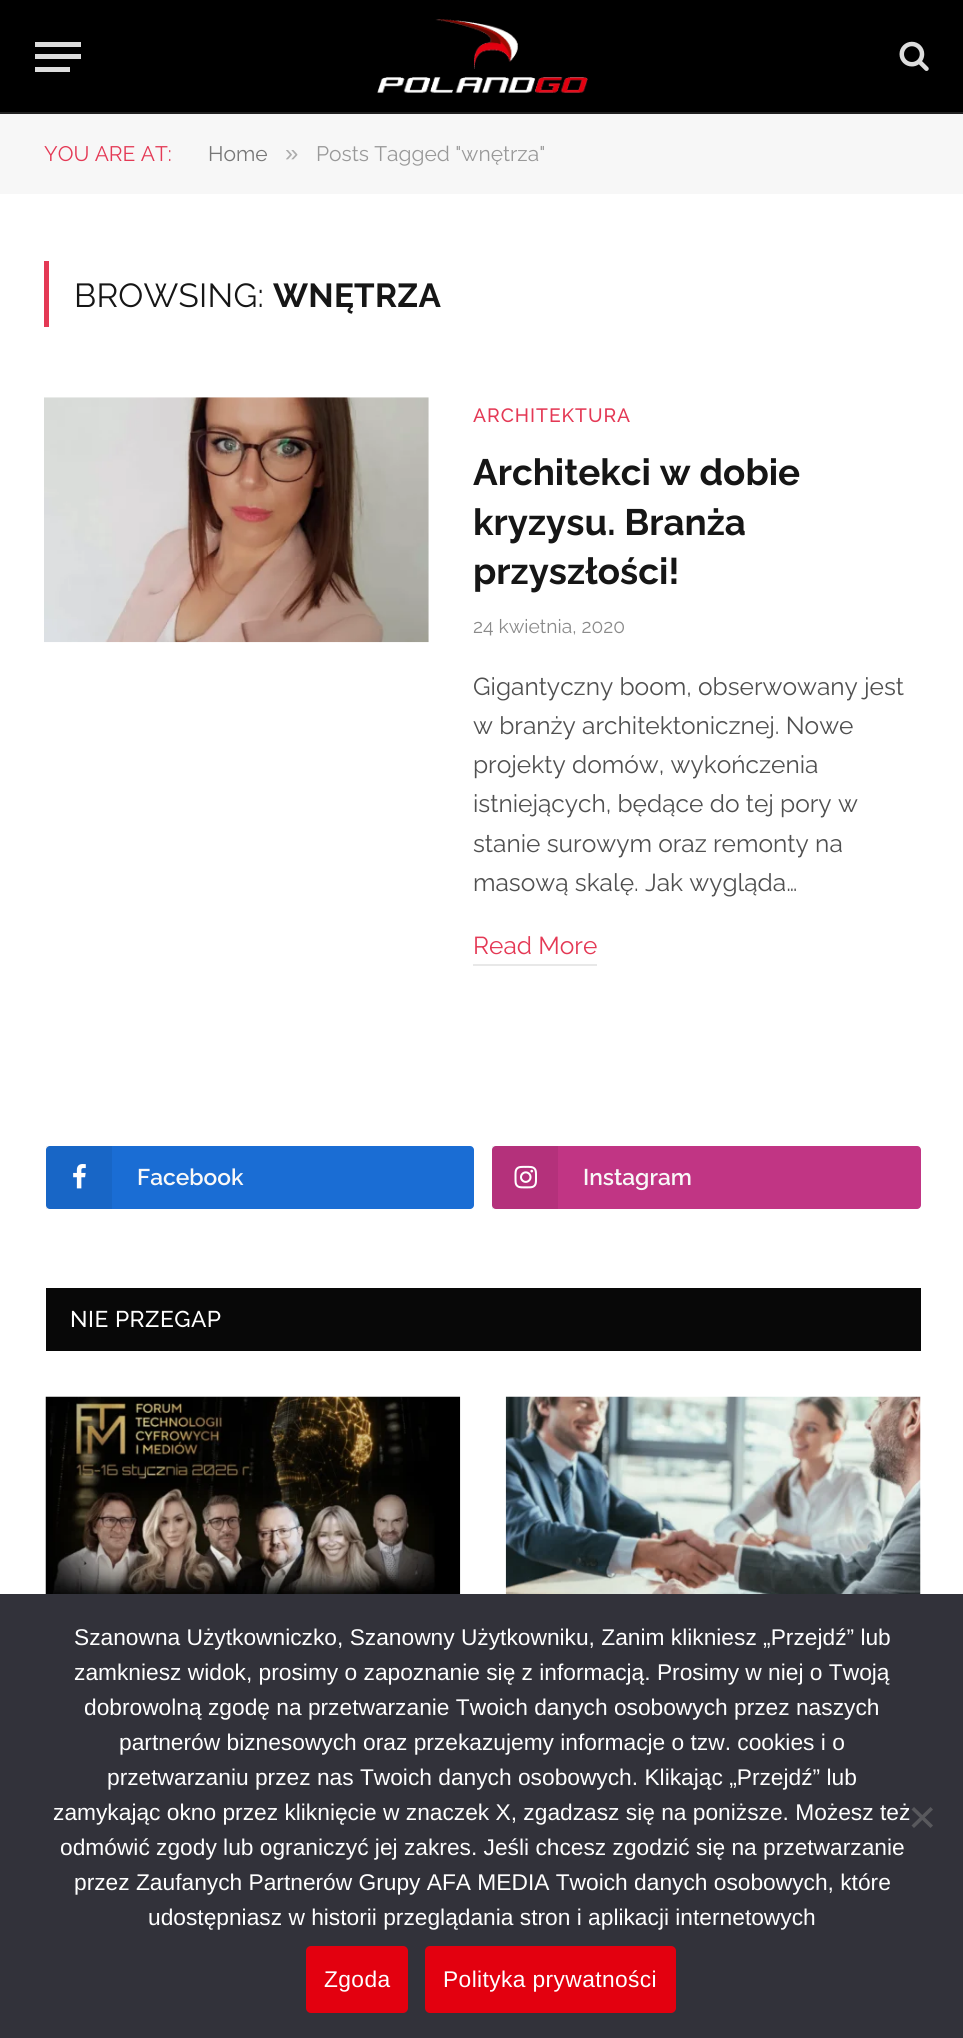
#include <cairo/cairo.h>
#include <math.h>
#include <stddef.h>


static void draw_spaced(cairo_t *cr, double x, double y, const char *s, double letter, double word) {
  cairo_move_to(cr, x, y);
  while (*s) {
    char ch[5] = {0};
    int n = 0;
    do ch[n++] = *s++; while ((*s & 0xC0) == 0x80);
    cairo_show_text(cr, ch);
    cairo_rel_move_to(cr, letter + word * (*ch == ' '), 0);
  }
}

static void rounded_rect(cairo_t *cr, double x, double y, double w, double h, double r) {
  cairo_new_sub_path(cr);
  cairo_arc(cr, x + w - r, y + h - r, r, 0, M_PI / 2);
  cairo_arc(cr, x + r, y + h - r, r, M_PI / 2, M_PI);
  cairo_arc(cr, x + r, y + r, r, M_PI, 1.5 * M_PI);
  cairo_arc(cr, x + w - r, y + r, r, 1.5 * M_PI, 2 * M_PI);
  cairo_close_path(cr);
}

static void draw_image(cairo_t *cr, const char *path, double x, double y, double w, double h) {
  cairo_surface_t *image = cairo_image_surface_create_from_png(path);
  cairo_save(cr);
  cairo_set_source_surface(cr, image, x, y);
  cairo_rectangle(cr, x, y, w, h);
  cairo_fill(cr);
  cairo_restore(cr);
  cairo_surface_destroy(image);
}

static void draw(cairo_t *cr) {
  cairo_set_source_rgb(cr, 1, 1, 1);
  cairo_paint(cr);
  cairo_set_source_rgb(cr, 0, 0, 0);
  cairo_rectangle(cr, 0, 0, 963, 112);
  cairo_fill(cr);
  cairo_set_source_rgb(cr, 34 / 255.0, 34 / 255.0, 34 / 255.0);
  cairo_rectangle(cr, 0, 112, 963, 2);
  cairo_fill(cr);
  cairo_set_source_rgb(cr, 221 / 255.0, 221 / 255.0, 221 / 255.0);
  cairo_rectangle(cr, 35, 67, 35, 5);
  cairo_fill(cr);
  cairo_rectangle(cr, 35, 42, 46, 5);
  cairo_fill(cr);
  cairo_rectangle(cr, 35, 54, 46, 5);
  cairo_fill(cr);
  draw_image(cr, "images/1.png", 377, 19, 211, 74);
  draw_image(cr, "images/2.png", 899, 41, 30, 30);
  cairo_set_source_rgb(cr, 247 / 255.0, 247 / 255.0, 247 / 255.0);
  cairo_rectangle(cr, 0, 114, 963, 80);
  cairo_fill(cr);
  cairo_set_source_rgb(cr, 228 / 255.0, 57 / 255.0, 85 / 255.0);
  cairo_rectangle(cr, 44, 261, 5, 66);
  cairo_fill(cr);
  draw_image(cr, "images/3.png", 44, 397, 385, 246);
  cairo_set_source_rgb(cr, 232 / 255.0, 232 / 255.0, 232 / 255.0);
  cairo_rectangle(cr, 473, 964, 124, 2);
  cairo_fill(cr);
  cairo_set_source_rgb(cr, 26 / 255.0, 109 / 255.0, 212 / 255.0);
  rounded_rect(cr, 46, 1146, 428, 63, 4);
  cairo_fill(cr);
  cairo_set_source_rgba(cr, 0, 0, 0, 0.07);
  cairo_rectangle(cr, 46, 1146, 66, 63);
  cairo_fill(cr);
  draw_image(cr, "images/4.png", 73, 1164, 13, 25);
  cairo_set_source_rgb(cr, 193 / 255.0, 53 / 255.0, 132 / 255.0);
  rounded_rect(cr, 492, 1146, 429, 63, 4);
  cairo_fill(cr);
  cairo_set_source_rgba(cr, 0, 0, 0, 0.07);
  cairo_rectangle(cr, 492, 1146, 66, 63);
  cairo_fill(cr);
  draw_image(cr, "images/5.png", 514, 1165, 23, 24);
  cairo_set_source_rgb(cr, 8 / 255.0, 8 / 255.0, 8 / 255.0);
  cairo_rectangle(cr, 46, 1288, 875, 63);
  cairo_fill(cr);
  draw_image(cr, "images/6.png", 45, 1396, 416, 198);
  draw_image(cr, "images/7.png", 505, 1396, 416, 198);
  cairo_set_source_rgb(cr, 50 / 255.0, 50 / 255.0, 58 / 255.0);
  cairo_rectangle(cr, 0, 1594, 963, 444);
  cairo_fill(cr);
  cairo_set_source_rgb(cr, 89 / 255.0, 89 / 255.0, 93 / 255.0);
  cairo_new_path(cr);
  cairo_move_to(cr, 930.5, 1807);
  cairo_line_to(cr, 933, 1809.5);
  cairo_line_to(cr, 914, 1828);
  cairo_line_to(cr, 911.5, 1825.5);
  cairo_close_path(cr);
  cairo_fill(cr);
  cairo_new_path(cr);
  cairo_move_to(cr, 911.5, 1809.5);
  cairo_line_to(cr, 914, 1807);
  cairo_line_to(cr, 933, 1825.5);
  cairo_line_to(cr, 930.5, 1828);
  cairo_close_path(cr);
  cairo_fill(cr);
  cairo_set_source_rgb(cr, 227 / 255.0, 0, 15 / 255.0);
  rounded_rect(cr, 306, 1946, 102, 67, 5);
  cairo_fill(cr);
  rounded_rect(cr, 425, 1946, 251, 67, 5);
  cairo_fill(cr);
  cairo_select_font_face(cr, "Raleway", CAIRO_FONT_SLANT_NORMAL, CAIRO_FONT_WEIGHT_NORMAL);
  cairo_set_font_size(cr, 21);
  cairo_set_source_rgb(cr, 228 / 255.0, 57 / 255.0, 85 / 255.0);
  cairo_move_to(cr, 44, 161);
  cairo_show_text(cr, "YOU ARE AT:");
  cairo_set_source_rgb(cr, 119 / 255.0, 119 / 255.0, 119 / 255.0);
  cairo_move_to(cr, 208, 161);
  cairo_show_text(cr, "Home");
  cairo_select_font_face(cr, "Liberation Sans", CAIRO_FONT_SLANT_NORMAL, CAIRO_FONT_WEIGHT_NORMAL);
  cairo_set_font_size(cr, 24);
  cairo_set_source_rgb(cr, 172 / 255.0, 172 / 255.0, 172 / 255.0);
  cairo_move_to(cr, 285, 161);
  cairo_show_text(cr, "»");
  cairo_select_font_face(cr, "Raleway", CAIRO_FONT_SLANT_NORMAL, CAIRO_FONT_WEIGHT_NORMAL);
  cairo_set_font_size(cr, 21);
  cairo_set_source_rgb(cr, 153 / 255.0, 153 / 255.0, 153 / 255.0);
  cairo_move_to(cr, 316, 161);
  cairo_show_text(cr, "Posts Tagged \"wnętrza\"");
  cairo_set_font_size(cr, 33.25);
  cairo_set_source_rgb(cr, 22 / 255.0, 22 / 255.0, 22 / 255.0);
  draw_spaced(cr, 74, 307, "BROWSING:", 0.25, 0);
  cairo_select_font_face(cr, "Raleway", CAIRO_FONT_SLANT_NORMAL, CAIRO_FONT_WEIGHT_BOLD);
  draw_spaced(cr, 273, 307, "WNĘTRZA", 0.25, 0);
  cairo_select_font_face(cr, "Raleway Medium", CAIRO_FONT_SLANT_NORMAL, CAIRO_FONT_WEIGHT_NORMAL);
  cairo_set_font_size(cr, 19.25);
  cairo_set_source_rgb(cr, 228 / 255.0, 57 / 255.0, 85 / 255.0);
  draw_spaced(cr, 473, 422, "ARCHITEKTURA", 1, 0);
  cairo_select_font_face(cr, "Raleway", CAIRO_FONT_SLANT_NORMAL, CAIRO_FONT_WEIGHT_BOLD);
  cairo_set_font_size(cr, 36.75);
  cairo_set_source_rgb(cr, 22 / 255.0, 22 / 255.0, 22 / 255.0);
  cairo_move_to(cr, 473, 485);
  cairo_show_text(cr, "Architekci w dobie");
  cairo_move_to(cr, 473, 535);
  cairo_show_text(cr, "kryzysu. Branża");
  cairo_move_to(cr, 473, 584);
  cairo_show_text(cr, "przyszłości!");
  cairo_select_font_face(cr, "Raleway", CAIRO_FONT_SLANT_NORMAL, CAIRO_FONT_WEIGHT_NORMAL);
  cairo_set_font_size(cr, 19.25);
  cairo_set_source_rgb(cr, 138 / 255.0, 138 / 255.0, 138 / 255.0);
  cairo_move_to(cr, 473, 633);
  cairo_show_text(cr, "24 kwietnia, 2020");
  cairo_set_font_size(cr, 24.5);
  cairo_set_source_rgb(cr, 80 / 255.0, 80 / 255.0, 80 / 255.0);
  cairo_move_to(cr, 473, 695);
  cairo_show_text(cr, "Gigantyczny boom, obserwowany jest");
  cairo_move_to(cr, 473, 734);
  cairo_show_text(cr, "w branży architektonicznej. Nowe");
  cairo_move_to(cr, 473, 773);
  cairo_show_text(cr, "projekty domów, wykończenia");
  cairo_move_to(cr, 473, 812);
  cairo_show_text(cr, "istniejących, będące do tej pory w");
  cairo_move_to(cr, 473, 852);
  cairo_show_text(cr, "stanie surowym oraz remonty na");
  cairo_move_to(cr, 473, 891);
  cairo_show_text(cr, "masową skalę. Jak wygląda…");
  cairo_set_source_rgb(cr, 228 / 255.0, 57 / 255.0, 85 / 255.0);
  cairo_move_to(cr, 473, 954);
  cairo_show_text(cr, "Read More");
  cairo_select_font_face(cr, "Raleway SemiBold", CAIRO_FONT_SLANT_NORMAL, CAIRO_FONT_WEIGHT_NORMAL);
  cairo_set_font_size(cr, 22.75);
  cairo_set_source_rgb(cr, 248 / 255.0, 248 / 255.0, 248 / 255.0);
  cairo_move_to(cr, 137, 1185);
  cairo_show_text(cr, "Facebook");
  cairo_move_to(cr, 583, 1185);
  cairo_show_text(cr, "Instagram");
  cairo_select_font_face(cr, "Raleway Medium", CAIRO_FONT_SLANT_NORMAL, CAIRO_FONT_WEIGHT_NORMAL);
  cairo_set_source_rgb(cr, 1, 1, 1);
  draw_spaced(cr, 70, 1327, "NIE PRZEGAP", 0.5, 0);
  cairo_select_font_face(cr, "Liberation Sans", CAIRO_FONT_SLANT_NORMAL, CAIRO_FONT_WEIGHT_NORMAL);
  cairo_move_to(cr, 74, 1645);
  cairo_show_text(cr, "Szanowna Użytkowniczko, Szanowny Użytkowniku, Zanim klikniesz „Przejdź” lub");
  cairo_move_to(cr, 74, 1680);
  cairo_show_text(cr, "zamkniesz widok, prosimy o zapoznanie się z informacją. Prosimy w niej o Twoją");
  cairo_move_to(cr, 84, 1715);
  cairo_show_text(cr, "dobrowolną zgodę na przetwarzanie Twoich danych osobowych przez naszych");
  cairo_move_to(cr, 119, 1750);
  cairo_show_text(cr, "partnerów biznesowych oraz przekazujemy informacje o tzw. cookies i o");
  cairo_move_to(cr, 107, 1785);
  cairo_show_text(cr, "przetwarzaniu przez nas Twoich danych osobowych. Klikając „Przejdź” lub");
  cairo_move_to(cr, 53, 1820);
  cairo_show_text(cr, "zamykając okno przez kliknięcie w znaczek X, zgadzasz się na poniższe. Możesz też");
  cairo_move_to(cr, 60, 1855);
  cairo_show_text(cr, "odmówić zgody lub ograniczyć jej zakres. Jeśli chcesz zgodzić się na przetwarzanie");
  cairo_move_to(cr, 74, 1890);
  cairo_show_text(cr, "przez Zaufanych Partnerów Grupy AFA MEDIA Twoich danych osobowych, które");
  cairo_move_to(cr, 148, 1925);
  cairo_show_text(cr, "udostępniasz w historii przeglądania stron i aplikacji internetowych");
  draw_spaced(cr, 324, 1987, "Zgoda", 0.4, 0);
  draw_spaced(cr, 443, 1987, "Polityka prywatności", 0.4, 0);
}

int main(void) {
  cairo_surface_t *surface = cairo_image_surface_create(CAIRO_FORMAT_RGB24, 963, 2038);
  cairo_t *cr = cairo_create(surface);
  cairo_font_options_t *options = cairo_font_options_create();
  cairo_font_options_set_hint_metrics(options, CAIRO_HINT_METRICS_OFF);
  cairo_font_options_set_hint_style(options, CAIRO_HINT_STYLE_NONE);
  cairo_set_font_options(cr, options);
  cairo_set_miter_limit(cr, 4);
  draw(cr);
  cairo_surface_write_to_png(surface, "out.png");
  cairo_font_options_destroy(options);
  cairo_destroy(cr);
  cairo_surface_destroy(surface);
  return 0;
}
